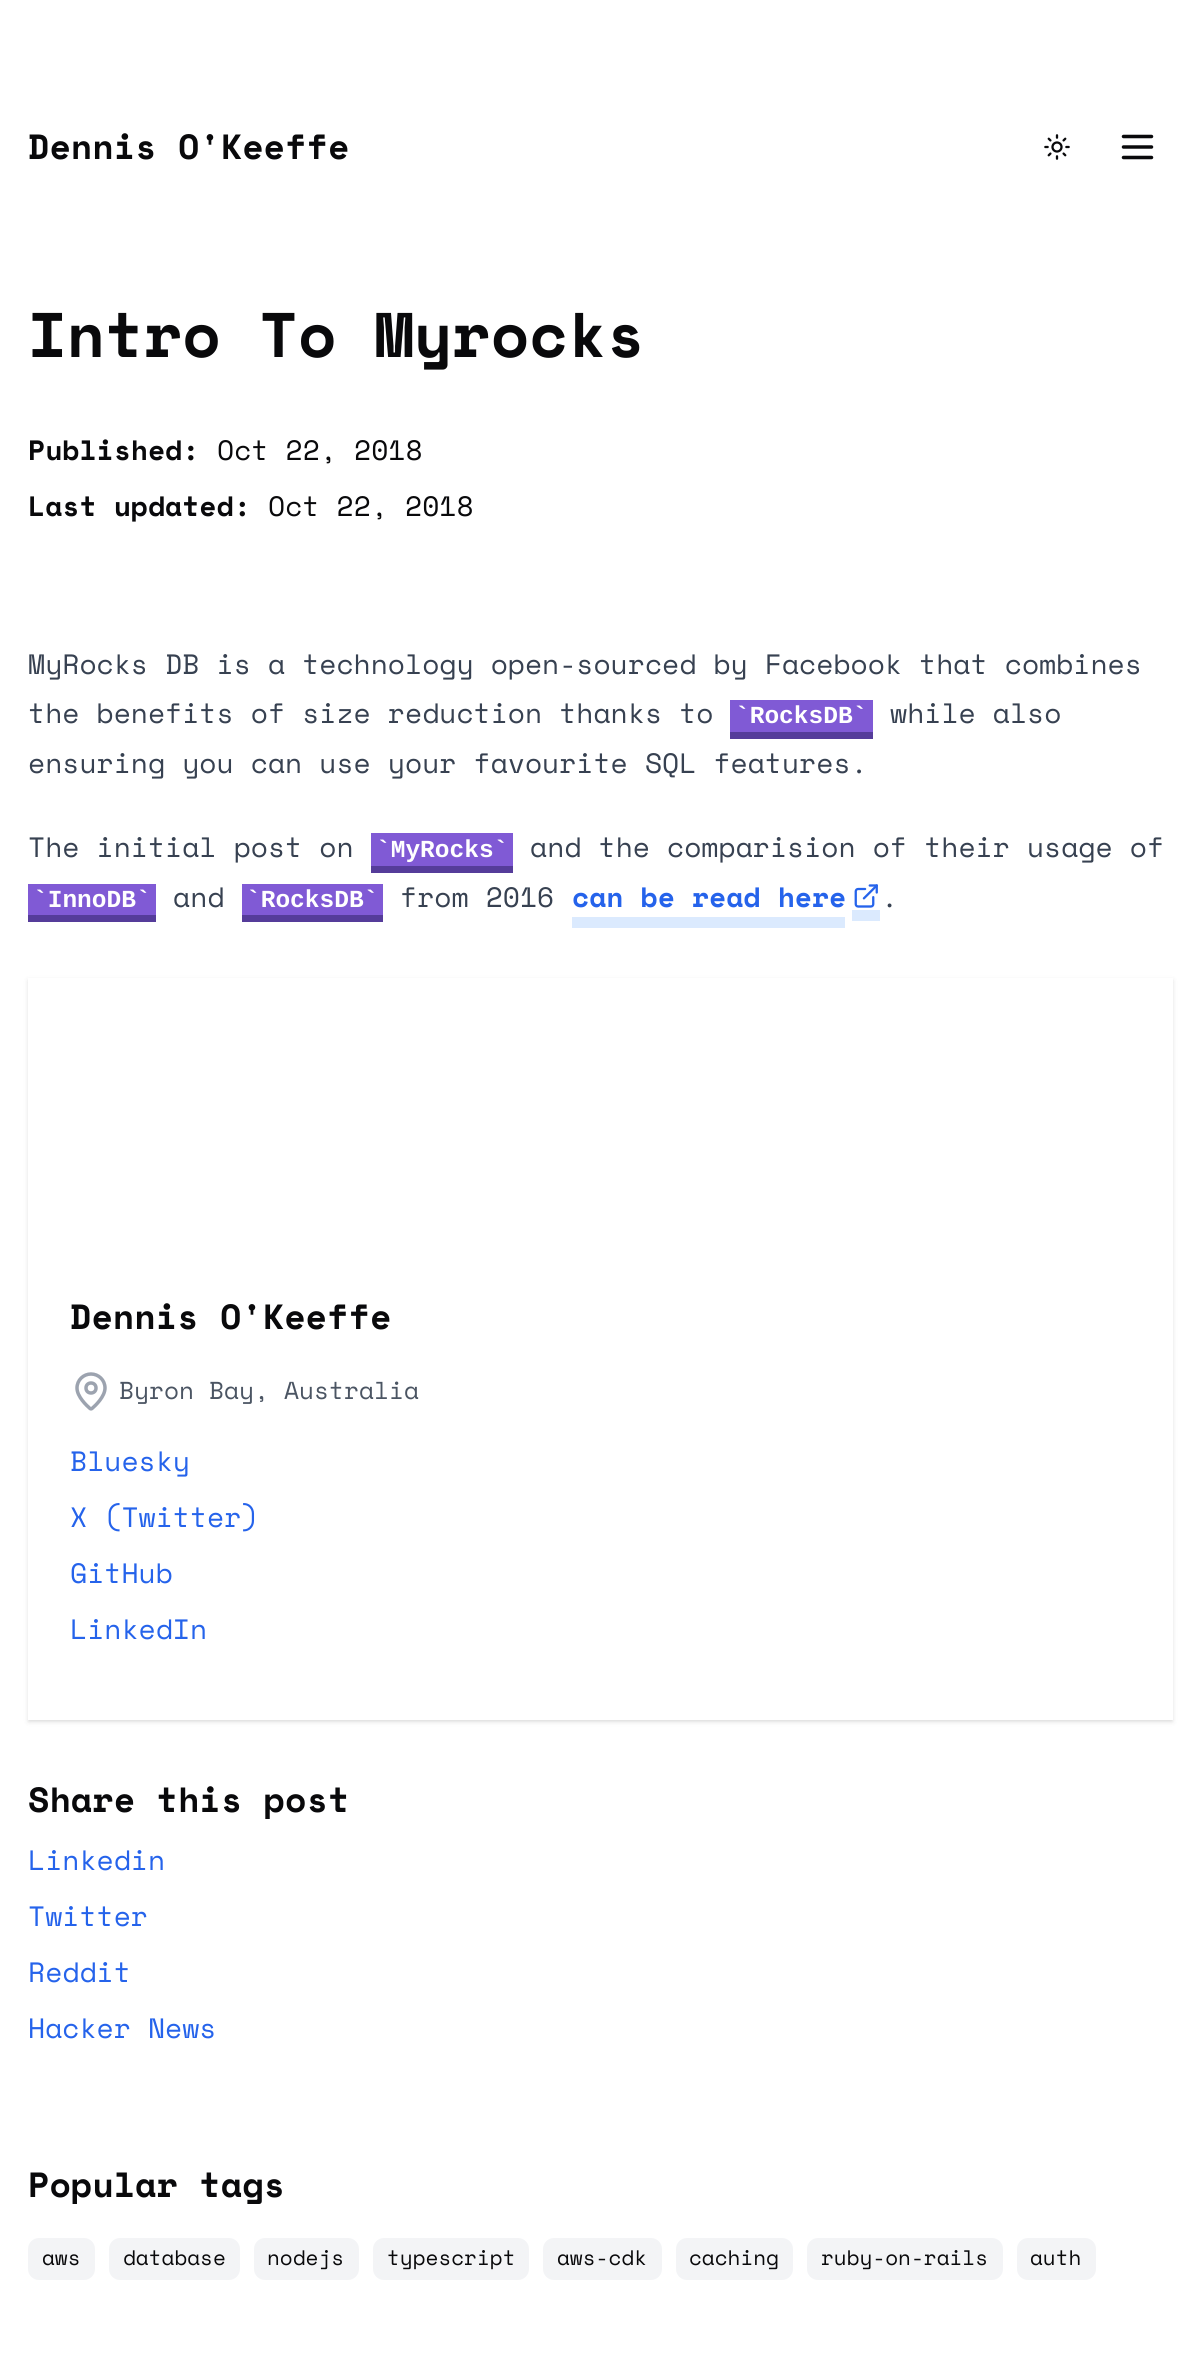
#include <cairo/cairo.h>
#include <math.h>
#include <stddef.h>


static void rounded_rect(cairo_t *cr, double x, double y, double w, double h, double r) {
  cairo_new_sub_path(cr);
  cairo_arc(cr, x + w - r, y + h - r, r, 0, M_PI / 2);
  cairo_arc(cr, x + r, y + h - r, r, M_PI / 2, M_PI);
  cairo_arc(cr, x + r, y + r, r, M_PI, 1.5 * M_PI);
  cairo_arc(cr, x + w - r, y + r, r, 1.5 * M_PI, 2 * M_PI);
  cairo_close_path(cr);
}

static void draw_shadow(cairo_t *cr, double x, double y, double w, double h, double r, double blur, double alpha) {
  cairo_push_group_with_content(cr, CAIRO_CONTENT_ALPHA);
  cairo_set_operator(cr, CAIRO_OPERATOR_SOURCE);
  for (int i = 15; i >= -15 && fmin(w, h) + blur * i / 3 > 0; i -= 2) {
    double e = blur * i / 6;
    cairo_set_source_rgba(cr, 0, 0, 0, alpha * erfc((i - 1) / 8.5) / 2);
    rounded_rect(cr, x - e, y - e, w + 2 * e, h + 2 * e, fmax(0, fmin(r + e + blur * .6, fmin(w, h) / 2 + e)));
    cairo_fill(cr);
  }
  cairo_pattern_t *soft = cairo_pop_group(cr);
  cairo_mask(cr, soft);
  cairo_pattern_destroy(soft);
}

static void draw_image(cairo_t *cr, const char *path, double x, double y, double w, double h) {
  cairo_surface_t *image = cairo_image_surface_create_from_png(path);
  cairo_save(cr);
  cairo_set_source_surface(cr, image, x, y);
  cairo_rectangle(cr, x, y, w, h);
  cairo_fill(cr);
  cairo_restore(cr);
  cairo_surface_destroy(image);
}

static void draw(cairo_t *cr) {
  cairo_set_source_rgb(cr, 1, 1, 1);
  cairo_paint(cr);
  draw_image(cr, "images/1.png", 1044, 134, 26, 26);
  cairo_new_path(cr);
  cairo_move_to(cr, 1123.5, 147);
  cairo_line_to(cr, 1151.5, 147);
  cairo_move_to(cr, 1123.5, 136.5);
  cairo_line_to(cr, 1151.5, 136.5);
  cairo_move_to(cr, 1123.5, 157.5);
  cairo_line_to(cr, 1151.5, 157.5);
  cairo_set_source_rgb(cr, 9 / 255.0, 9 / 255.0, 11 / 255.0);
  cairo_set_line_width(cr, 3.5);
  cairo_set_line_cap(cr, CAIRO_LINE_CAP_ROUND);
  cairo_set_line_join(cr, CAIRO_LINE_JOIN_ROUND);
  cairo_stroke(cr);
  cairo_set_source_rgb(cr, 128 / 255.0, 90 / 255.0, 213 / 255.0);
  cairo_rectangle(cr, 730, 700, 143, 32);
  cairo_fill(cr);
  cairo_set_source_rgb(cr, 85 / 255.0, 60 / 255.0, 154 / 255.0);
  cairo_rectangle(cr, 730, 732, 143, 7);
  cairo_fill(cr);
  cairo_set_source_rgb(cr, 128 / 255.0, 90 / 255.0, 213 / 255.0);
  cairo_rectangle(cr, 371, 833, 142, 33);
  cairo_fill(cr);
  cairo_set_source_rgb(cr, 85 / 255.0, 60 / 255.0, 154 / 255.0);
  cairo_rectangle(cr, 371, 866, 142, 7);
  cairo_fill(cr);
  cairo_set_source_rgb(cr, 128 / 255.0, 90 / 255.0, 213 / 255.0);
  cairo_rectangle(cr, 28, 884, 128, 31);
  cairo_fill(cr);
  cairo_set_source_rgb(cr, 85 / 255.0, 60 / 255.0, 154 / 255.0);
  cairo_rectangle(cr, 28, 915, 128, 7);
  cairo_fill(cr);
  cairo_set_source_rgb(cr, 128 / 255.0, 90 / 255.0, 213 / 255.0);
  cairo_rectangle(cr, 242, 884, 141, 31);
  cairo_fill(cr);
  cairo_set_source_rgb(cr, 85 / 255.0, 60 / 255.0, 154 / 255.0);
  cairo_rectangle(cr, 242, 915, 141, 7);
  cairo_fill(cr);
  cairo_set_source_rgb(cr, 219 / 255.0, 234 / 255.0, 254 / 255.0);
  cairo_rectangle(cr, 572, 917, 273, 11);
  cairo_fill(cr);
  cairo_rectangle(cr, 852, 910, 28, 11);
  cairo_fill(cr);
  draw_image(cr, "images/2.png", 854, 884, 24, 24);
  cairo_set_source_rgb(cr, 0, 0, 0);
  draw_shadow(cr, 30, 982, 1141, 738, 0, 2, 0.1);
  draw_shadow(cr, 28, 980, 1145, 742, 0, 2.5, 0.1);
  cairo_set_source_rgb(cr, 1, 1, 1);
  cairo_rectangle(cr, 28, 978, 1145, 742);
  cairo_fill(cr);
  cairo_new_path(cr);
  cairo_move_to(cr, 105, 1388);
  cairo_curve_to(cr, 105, 1396.5, 95.5, 1405.5, 92, 1408.5);
  cairo_curve_to(cr, 91.5, 1409, 90.5, 1409, 90, 1408.5);
  cairo_curve_to(cr, 86.5, 1405.5, 77, 1396.5, 77, 1388);
  cairo_curve_to(cr, 77, 1380, 83.5, 1374, 91, 1374);
  cairo_curve_to(cr, 98.5, 1374, 105, 1380, 105, 1388);
  cairo_set_source_rgb(cr, 156 / 255.0, 163 / 255.0, 175 / 255.0);
  cairo_stroke(cr);
  cairo_arc(cr, 91, 1388, 5, 0, 2 * M_PI);
  cairo_set_line_cap(cr, CAIRO_LINE_CAP_BUTT);
  cairo_set_line_join(cr, CAIRO_LINE_JOIN_MITER);
  cairo_stroke(cr);
  cairo_set_source_rgb(cr, 243 / 255.0, 244 / 255.0, 246 / 255.0);
  rounded_rect(cr, 28, 2238, 67, 42, 11);
  cairo_fill(cr);
  rounded_rect(cr, 109, 2238, 131, 42, 11);
  cairo_fill(cr);
  rounded_rect(cr, 254, 2238, 105, 42, 11);
  cairo_fill(cr);
  rounded_rect(cr, 373, 2238, 156, 42, 11);
  cairo_fill(cr);
  rounded_rect(cr, 543, 2238, 119, 42, 11);
  cairo_fill(cr);
  rounded_rect(cr, 676, 2238, 117, 42, 11);
  cairo_fill(cr);
  rounded_rect(cr, 807, 2238, 196, 42, 11);
  cairo_fill(cr);
  rounded_rect(cr, 1017, 2238, 79, 42, 11);
  cairo_fill(cr);
  cairo_select_font_face(cr, "Space Mono", CAIRO_FONT_SLANT_NORMAL, CAIRO_FONT_WEIGHT_BOLD);
  cairo_set_font_size(cr, 35);
  cairo_set_source_rgb(cr, 9 / 255.0, 9 / 255.0, 11 / 255.0);
  cairo_move_to(cr, 28, 159);
  cairo_show_text(cr, "Dennis O'Keeffe");
  cairo_set_font_size(cr, 63);
  cairo_move_to(cr, 28, 357);
  cairo_show_text(cr, "Intro To Myrocks");
  cairo_set_font_size(cr, 28);
  cairo_move_to(cr, 28, 460);
  cairo_show_text(cr, "Published:");
  cairo_select_font_face(cr, "Space Mono", CAIRO_FONT_SLANT_NORMAL, CAIRO_FONT_WEIGHT_NORMAL);
  cairo_move_to(cr, 217, 460);
  cairo_show_text(cr, "Oct 22, 2018");
  cairo_select_font_face(cr, "Space Mono", CAIRO_FONT_SLANT_NORMAL, CAIRO_FONT_WEIGHT_BOLD);
  cairo_move_to(cr, 28, 516);
  cairo_show_text(cr, "Last updated:");
  cairo_select_font_face(cr, "Space Mono", CAIRO_FONT_SLANT_NORMAL, CAIRO_FONT_WEIGHT_NORMAL);
  cairo_move_to(cr, 268, 516);
  cairo_show_text(cr, "Oct 22, 2018");
  cairo_set_source_rgb(cr, 55 / 255.0, 65 / 255.0, 81 / 255.0);
  cairo_move_to(cr, 28, 674);
  cairo_show_text(cr, "MyRocks DB is a technology open-sourced by Facebook that combines");
  cairo_move_to(cr, 28, 723);
  cairo_show_text(cr, "the benefits of size reduction thanks to");
  cairo_select_font_face(cr, "Liberation Mono", CAIRO_FONT_SLANT_NORMAL, CAIRO_FONT_WEIGHT_BOLD);
  cairo_set_font_size(cr, 24.5);
  cairo_set_source_rgb(cr, 1, 1, 1);
  cairo_move_to(cr, 735, 723);
  cairo_show_text(cr, "`RocksDB`");
  cairo_select_font_face(cr, "Space Mono", CAIRO_FONT_SLANT_NORMAL, CAIRO_FONT_WEIGHT_NORMAL);
  cairo_set_font_size(cr, 28);
  cairo_set_source_rgb(cr, 55 / 255.0, 65 / 255.0, 81 / 255.0);
  cairo_move_to(cr, 890, 723);
  cairo_show_text(cr, "while also");
  cairo_move_to(cr, 28, 773);
  cairo_show_text(cr, "ensuring you can use your favourite SQL features.");
  cairo_move_to(cr, 28, 857);
  cairo_show_text(cr, "The initial post on");
  cairo_select_font_face(cr, "Liberation Mono", CAIRO_FONT_SLANT_NORMAL, CAIRO_FONT_WEIGHT_BOLD);
  cairo_set_font_size(cr, 24.5);
  cairo_set_source_rgb(cr, 1, 1, 1);
  cairo_move_to(cr, 376, 857);
  cairo_show_text(cr, "`MyRocks`");
  cairo_select_font_face(cr, "Space Mono", CAIRO_FONT_SLANT_NORMAL, CAIRO_FONT_WEIGHT_NORMAL);
  cairo_set_font_size(cr, 28);
  cairo_set_source_rgb(cr, 55 / 255.0, 65 / 255.0, 81 / 255.0);
  cairo_move_to(cr, 530, 857);
  cairo_show_text(cr, "and the comparision of their usage of");
  cairo_select_font_face(cr, "Liberation Mono", CAIRO_FONT_SLANT_NORMAL, CAIRO_FONT_WEIGHT_BOLD);
  cairo_set_font_size(cr, 24.5);
  cairo_set_source_rgb(cr, 1, 1, 1);
  cairo_move_to(cr, 33, 907);
  cairo_show_text(cr, "`InnoDB`");
  cairo_select_font_face(cr, "Space Mono", CAIRO_FONT_SLANT_NORMAL, CAIRO_FONT_WEIGHT_NORMAL);
  cairo_set_font_size(cr, 28);
  cairo_set_source_rgb(cr, 55 / 255.0, 65 / 255.0, 81 / 255.0);
  cairo_move_to(cr, 173, 907);
  cairo_show_text(cr, "and");
  cairo_select_font_face(cr, "Liberation Mono", CAIRO_FONT_SLANT_NORMAL, CAIRO_FONT_WEIGHT_BOLD);
  cairo_set_font_size(cr, 24.5);
  cairo_set_source_rgb(cr, 1, 1, 1);
  cairo_move_to(cr, 246, 907);
  cairo_show_text(cr, "`RocksDB`");
  cairo_select_font_face(cr, "Space Mono", CAIRO_FONT_SLANT_NORMAL, CAIRO_FONT_WEIGHT_NORMAL);
  cairo_set_font_size(cr, 28);
  cairo_set_source_rgb(cr, 55 / 255.0, 65 / 255.0, 81 / 255.0);
  cairo_move_to(cr, 400, 907);
  cairo_show_text(cr, "from 2016");
  cairo_select_font_face(cr, "Space Mono", CAIRO_FONT_SLANT_NORMAL, CAIRO_FONT_WEIGHT_BOLD);
  cairo_set_source_rgb(cr, 37 / 255.0, 99 / 255.0, 235 / 255.0);
  cairo_move_to(cr, 572, 907);
  cairo_show_text(cr, "can be read here");
  cairo_select_font_face(cr, "Space Mono", CAIRO_FONT_SLANT_NORMAL, CAIRO_FONT_WEIGHT_NORMAL);
  cairo_set_source_rgb(cr, 55 / 255.0, 65 / 255.0, 81 / 255.0);
  cairo_move_to(cr, 881, 907);
  cairo_show_text(cr, ".");
  cairo_select_font_face(cr, "Space Mono", CAIRO_FONT_SLANT_NORMAL, CAIRO_FONT_WEIGHT_BOLD);
  cairo_set_font_size(cr, 35);
  cairo_set_source_rgb(cr, 9 / 255.0, 9 / 255.0, 11 / 255.0);
  cairo_move_to(cr, 70, 1329);
  cairo_show_text(cr, "Dennis O'Keeffe");
  cairo_select_font_face(cr, "Space Mono", CAIRO_FONT_SLANT_NORMAL, CAIRO_FONT_WEIGHT_NORMAL);
  cairo_set_font_size(cr, 24.5);
  cairo_set_source_rgb(cr, 75 / 255.0, 85 / 255.0, 99 / 255.0);
  cairo_move_to(cr, 119, 1399);
  cairo_show_text(cr, "Byron Bay, Australia");
  cairo_set_font_size(cr, 28);
  cairo_set_source_rgb(cr, 37 / 255.0, 99 / 255.0, 235 / 255.0);
  cairo_move_to(cr, 70, 1471);
  cairo_show_text(cr, "Bluesky");
  cairo_move_to(cr, 70, 1527);
  cairo_show_text(cr, "X (Twitter)");
  cairo_move_to(cr, 70, 1583);
  cairo_show_text(cr, "GitHub");
  cairo_move_to(cr, 70, 1639);
  cairo_show_text(cr, "LinkedIn");
  cairo_select_font_face(cr, "Space Mono", CAIRO_FONT_SLANT_NORMAL, CAIRO_FONT_WEIGHT_BOLD);
  cairo_set_font_size(cr, 35);
  cairo_set_source_rgb(cr, 9 / 255.0, 9 / 255.0, 11 / 255.0);
  cairo_move_to(cr, 28, 1812);
  cairo_show_text(cr, "Share this post");
  cairo_select_font_face(cr, "Space Mono", CAIRO_FONT_SLANT_NORMAL, CAIRO_FONT_WEIGHT_NORMAL);
  cairo_set_font_size(cr, 28);
  cairo_set_source_rgb(cr, 37 / 255.0, 99 / 255.0, 235 / 255.0);
  cairo_move_to(cr, 28, 1870);
  cairo_show_text(cr, "Linkedin");
  cairo_move_to(cr, 28, 1926);
  cairo_show_text(cr, "Twitter");
  cairo_move_to(cr, 28, 1982);
  cairo_show_text(cr, "Reddit");
  cairo_move_to(cr, 28, 2038);
  cairo_show_text(cr, "Hacker News");
  cairo_select_font_face(cr, "Space Mono", CAIRO_FONT_SLANT_NORMAL, CAIRO_FONT_WEIGHT_BOLD);
  cairo_set_font_size(cr, 35);
  cairo_set_source_rgb(cr, 9 / 255.0, 9 / 255.0, 11 / 255.0);
  cairo_move_to(cr, 28, 2197);
  cairo_show_text(cr, "Popular tags");
  cairo_select_font_face(cr, "Space Mono", CAIRO_FONT_SLANT_NORMAL, CAIRO_FONT_WEIGHT_NORMAL);
  cairo_set_font_size(cr, 21);
  cairo_move_to(cr, 42, 2265);
  cairo_show_text(cr, "aws");
  cairo_move_to(cr, 123, 2265);
  cairo_show_text(cr, "database");
  cairo_move_to(cr, 267, 2265);
  cairo_show_text(cr, "nodejs");
  cairo_move_to(cr, 387, 2265);
  cairo_show_text(cr, "typescript");
  cairo_move_to(cr, 557, 2265);
  cairo_show_text(cr, "aws-cdk");
  cairo_move_to(cr, 689, 2265);
  cairo_show_text(cr, "caching");
  cairo_move_to(cr, 821, 2265);
  cairo_show_text(cr, "ruby-on-rails");
  cairo_move_to(cr, 1030, 2265);
  cairo_show_text(cr, "auth");
}

int main(void) {
  cairo_surface_t *surface = cairo_image_surface_create(CAIRO_FORMAT_RGB24, 1200, 2378);
  cairo_t *cr = cairo_create(surface);
  cairo_font_options_t *options = cairo_font_options_create();
  cairo_font_options_set_hint_metrics(options, CAIRO_HINT_METRICS_OFF);
  cairo_font_options_set_hint_style(options, CAIRO_HINT_STYLE_NONE);
  cairo_set_font_options(cr, options);
  cairo_set_miter_limit(cr, 4);
  draw(cr);
  cairo_surface_write_to_png(surface, "out.png");
  cairo_font_options_destroy(options);
  cairo_destroy(cr);
  cairo_surface_destroy(surface);
  return 0;
}
